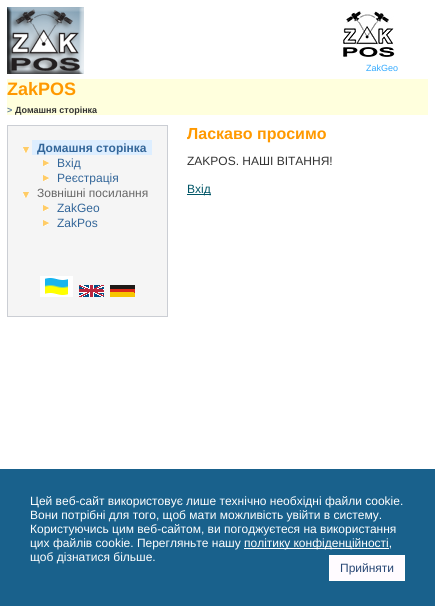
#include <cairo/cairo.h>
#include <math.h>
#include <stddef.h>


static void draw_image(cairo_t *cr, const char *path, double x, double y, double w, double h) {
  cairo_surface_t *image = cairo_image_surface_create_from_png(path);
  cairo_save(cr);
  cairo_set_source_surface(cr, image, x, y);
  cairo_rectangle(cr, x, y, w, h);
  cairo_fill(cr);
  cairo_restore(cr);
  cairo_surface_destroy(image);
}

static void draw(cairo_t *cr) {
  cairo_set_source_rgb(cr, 1, 1, 1);
  cairo_paint(cr);
  draw_image(cr, "images/1.png", 7, 7, 77, 67);
  draw_image(cr, "images/2.png", 343, 11, 52, 46);
  cairo_set_source_rgb(cr, 1, 1, 221 / 255.0);
  cairo_rectangle(cr, 7, 79, 421, 36);
  cairo_fill(cr);
  cairo_set_source_rgb(cr, 245 / 255.0, 245 / 255.0, 245 / 255.0);
  cairo_rectangle(cr, 7.5, 125.5, 160, 191);
  cairo_fill_preserve(cr);
  cairo_set_source_rgb(cr, 203 / 255.0, 206 / 255.0, 212 / 255.0);
  cairo_set_line_width(cr, 1);
  cairo_stroke(cr);
  draw_image(cr, "images/3.png", 23, 147, 6, 6);
  cairo_set_source_rgb(cr, 221 / 255.0, 238 / 255.0, 1);
  cairo_rectangle(cr, 32, 140, 120, 15);
  cairo_fill(cr);
  draw_image(cr, "images/4.png", 43, 160, 6, 6);
  draw_image(cr, "images/4.png", 43, 175, 6, 6);
  draw_image(cr, "images/3.png", 23, 192, 6, 6);
  draw_image(cr, "images/4.png", 43, 205, 6, 6);
  draw_image(cr, "images/4.png", 43, 220, 6, 6);
  draw_image(cr, "images/5.png", 40, 276, 33, 21);
  draw_image(cr, "images/6.png", 79, 285, 25, 12);
  draw_image(cr, "images/7.png", 110, 285, 25, 12);
  cairo_set_source_rgb(cr, 0, 85 / 255.0, 102 / 255.0);
  cairo_rectangle(cr, 187, 194, 24, 1);
  cairo_fill(cr);
  cairo_set_source_rgb(cr, 25 / 255.0, 97 / 255.0, 140 / 255.0);
  cairo_rectangle(cr, 0, 469, 435, 137);
  cairo_fill(cr);
  cairo_set_source_rgb(cr, 1, 1, 1);
  cairo_rectangle(cr, 244, 548, 145, 1);
  cairo_fill(cr);
  cairo_set_source_rgb(cr, 1, 251 / 255.0, 1);
  cairo_rectangle(cr, 329.5, 555.5, 75, 25);
  cairo_fill_preserve(cr);
  cairo_set_source_rgb(cr, 1, 1, 1);
  cairo_stroke(cr);
  cairo_select_font_face(cr, "Liberation Sans", CAIRO_FONT_SLANT_NORMAL, CAIRO_FONT_WEIGHT_NORMAL);
  cairo_set_font_size(cr, 9);
  cairo_set_source_rgb(cr, 51 / 255.0, 170 / 255.0, 1);
  cairo_move_to(cr, 366, 71);
  cairo_show_text(cr, "ZakGeo");
  cairo_select_font_face(cr, "Liberation Sans", CAIRO_FONT_SLANT_NORMAL, CAIRO_FONT_WEIGHT_BOLD);
  cairo_set_font_size(cr, 18);
  cairo_set_source_rgb(cr, 1, 153 / 255.0, 0);
  cairo_move_to(cr, 7, 95);
  cairo_show_text(cr, "ZakPOS");
  cairo_set_font_size(cr, 9);
  cairo_set_source_rgb(cr, 93 / 255.0, 123 / 255.0, 157 / 255.0);
  cairo_move_to(cr, 7, 113);
  cairo_show_text(cr, ">");
  cairo_set_source_rgb(cr, 51 / 255.0, 51 / 255.0, 51 / 255.0);
  cairo_move_to(cr, 15, 113);
  cairo_show_text(cr, "Домашня сторінка");
  cairo_set_font_size(cr, 12);
  cairo_set_source_rgb(cr, 51 / 255.0, 102 / 255.0, 153 / 255.0);
  cairo_move_to(cr, 37, 152);
  cairo_show_text(cr, "Домашня сторінка");
  cairo_select_font_face(cr, "Liberation Sans", CAIRO_FONT_SLANT_NORMAL, CAIRO_FONT_WEIGHT_NORMAL);
  cairo_move_to(cr, 57, 167);
  cairo_show_text(cr, "Вхід");
  cairo_move_to(cr, 57, 182);
  cairo_show_text(cr, "Реєстрація");
  cairo_set_source_rgb(cr, 102 / 255.0, 102 / 255.0, 102 / 255.0);
  cairo_move_to(cr, 37, 197);
  cairo_show_text(cr, "Зовнішні посилання");
  cairo_set_source_rgb(cr, 51 / 255.0, 102 / 255.0, 153 / 255.0);
  cairo_move_to(cr, 57, 212);
  cairo_show_text(cr, "ZakGeo");
  cairo_move_to(cr, 57, 227);
  cairo_show_text(cr, "ZakPos");
  cairo_select_font_face(cr, "Liberation Sans", CAIRO_FONT_SLANT_NORMAL, CAIRO_FONT_WEIGHT_BOLD);
  cairo_set_font_size(cr, 16);
  cairo_set_source_rgb(cr, 1, 153 / 255.0, 0);
  cairo_move_to(cr, 187, 139);
  cairo_show_text(cr, "Ласкаво просимо");
  cairo_select_font_face(cr, "Liberation Sans", CAIRO_FONT_SLANT_NORMAL, CAIRO_FONT_WEIGHT_NORMAL);
  cairo_set_font_size(cr, 12);
  cairo_set_source_rgb(cr, 51 / 255.0, 51 / 255.0, 51 / 255.0);
  cairo_move_to(cr, 187, 165);
  cairo_show_text(cr, "ZAKPOS. НАШІ ВІТАННЯ!");
  cairo_set_source_rgb(cr, 0, 85 / 255.0, 102 / 255.0);
  cairo_move_to(cr, 187, 193);
  cairo_show_text(cr, "Вхід");
  cairo_set_source_rgb(cr, 1, 1, 1);
  cairo_move_to(cr, 30, 505);
  cairo_show_text(cr, "Цей веб-сайт використовує лише технічно необхідні файли cookie.");
  cairo_move_to(cr, 30, 519);
  cairo_show_text(cr, "Вони потрібні для того, щоб мати можливість увійти в систему.");
  cairo_move_to(cr, 30, 533);
  cairo_show_text(cr, "Користуючись цим веб-сайтом, ви погоджуєтеся на використання");
  cairo_move_to(cr, 30, 547);
  cairo_show_text(cr, "цих файлів cookie. Перегляньте нашу");
  cairo_move_to(cr, 244, 547);
  cairo_show_text(cr, "політику конфіденційності,");
  cairo_move_to(cr, 30, 561);
  cairo_show_text(cr, "щоб дізнатися більше.");
  cairo_set_source_rgb(cr, 40 / 255.0, 71 / 255.0, 117 / 255.0);
  cairo_move_to(cr, 340, 572);
  cairo_show_text(cr, "Прийняти");
}

int main(void) {
  cairo_surface_t *surface = cairo_image_surface_create(CAIRO_FORMAT_RGB24, 435, 606);
  cairo_t *cr = cairo_create(surface);
  cairo_font_options_t *options = cairo_font_options_create();
  cairo_font_options_set_hint_metrics(options, CAIRO_HINT_METRICS_OFF);
  cairo_font_options_set_hint_style(options, CAIRO_HINT_STYLE_NONE);
  cairo_set_font_options(cr, options);
  cairo_set_miter_limit(cr, 4);
  draw(cr);
  cairo_surface_write_to_png(surface, "out.png");
  cairo_font_options_destroy(options);
  cairo_destroy(cr);
  cairo_surface_destroy(surface);
  return 0;
}
